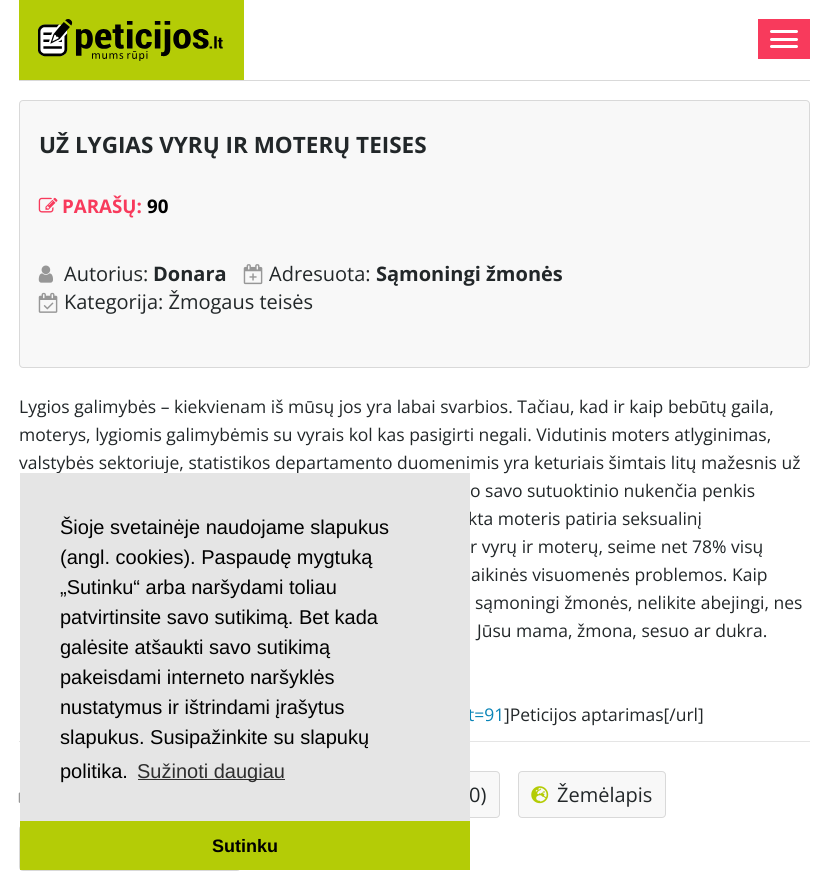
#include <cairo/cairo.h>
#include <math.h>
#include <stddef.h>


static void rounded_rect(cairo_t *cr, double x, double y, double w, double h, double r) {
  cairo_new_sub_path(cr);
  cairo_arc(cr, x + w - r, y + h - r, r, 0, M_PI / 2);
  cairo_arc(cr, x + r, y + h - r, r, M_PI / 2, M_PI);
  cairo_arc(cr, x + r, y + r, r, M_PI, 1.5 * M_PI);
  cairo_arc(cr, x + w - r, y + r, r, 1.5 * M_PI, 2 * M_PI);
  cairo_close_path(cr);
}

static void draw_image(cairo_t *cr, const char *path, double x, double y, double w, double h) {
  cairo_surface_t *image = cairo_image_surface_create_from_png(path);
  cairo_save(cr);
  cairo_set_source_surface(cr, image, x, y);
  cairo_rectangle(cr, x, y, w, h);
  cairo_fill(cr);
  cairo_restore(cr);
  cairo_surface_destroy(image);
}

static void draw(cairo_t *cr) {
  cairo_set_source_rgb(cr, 1, 1, 1);
  cairo_paint(cr);
  cairo_set_source_rgb(cr, 217 / 255.0, 217 / 255.0, 217 / 255.0);
  cairo_rectangle(cr, 19, 80, 791, 1);
  cairo_fill(cr);
  cairo_set_source_rgb(cr, 180 / 255.0, 204 / 255.0, 6 / 255.0);
  cairo_rectangle(cr, 19, 0, 225, 80);
  cairo_fill(cr);
  draw_image(cr, "images/1.png", 38, 19, 185, 42);
  cairo_set_source_rgb(cr, 248 / 255.0, 58 / 255.0, 92 / 255.0);
  cairo_rectangle(cr, 758, 19, 52, 40);
  cairo_fill(cr);
  cairo_set_source_rgb(cr, 1, 1, 1);
  rounded_rect(cr, 770, 30, 28, 3, 1.5);
  cairo_fill(cr);
  rounded_rect(cr, 770, 38, 28, 3, 1.5);
  cairo_fill(cr);
  rounded_rect(cr, 770, 45, 28, 3, 1.5);
  cairo_fill(cr);
  cairo_set_source_rgb(cr, 248 / 255.0, 248 / 255.0, 248 / 255.0);
  rounded_rect(cr, 19.5, 100.5, 790, 267, 3.5);
  cairo_fill_preserve(cr);
  cairo_set_source_rgb(cr, 217 / 255.0, 217 / 255.0, 217 / 255.0);
  cairo_set_line_width(cr, 1);
  cairo_stroke(cr);
  draw_image(cr, "images/2.png", 38, 197, 20, 16);
  draw_image(cr, "images/3.png", 38, 265, 15, 18);
  draw_image(cr, "images/4.png", 243, 264, 20, 21);
  draw_image(cr, "images/5.png", 38, 292, 20, 21);
  cairo_set_source_rgb(cr, 229 / 255.0, 229 / 255.0, 229 / 255.0);
  cairo_rectangle(cr, 19, 741, 791, 1);
  cairo_fill(cr);
  draw_image(cr, "images/6.png", 18, 792, 2, 11);
  cairo_set_source_rgb(cr, 248 / 255.0, 248 / 255.0, 248 / 255.0);
  rounded_rect(cr, 335.5, 771.5, 164, 46, 3.5);
  cairo_fill_preserve(cr);
  cairo_set_source_rgb(cr, 217 / 255.0, 217 / 255.0, 217 / 255.0);
  cairo_stroke(cr);
  cairo_set_source_rgb(cr, 248 / 255.0, 248 / 255.0, 248 / 255.0);
  rounded_rect(cr, 518.5, 771.5, 147, 46, 3.5);
  cairo_fill_preserve(cr);
  cairo_set_source_rgb(cr, 217 / 255.0, 217 / 255.0, 217 / 255.0);
  cairo_stroke(cr);
  draw_image(cr, "images/7.png", 531, 786, 18, 18);
  rounded_rect(cr, 19.5, 825.5, 221, 45, 3.5);
  cairo_stroke(cr);
  cairo_set_source_rgb(cr, 180 / 255.0, 204 / 255.0, 6 / 255.0);
  cairo_rectangle(cr, 20, 821, 450, 49);
  cairo_fill(cr);
  cairo_select_font_face(cr, "Open Sans", CAIRO_FONT_SLANT_NORMAL, CAIRO_FONT_WEIGHT_BOLD);
  cairo_set_font_size(cr, 22.5);
  cairo_set_source_rgb(cr, 34 / 255.0, 39 / 255.0, 41 / 255.0);
  cairo_move_to(cr, 39, 153);
  cairo_show_text(cr, "UŽ LYGIAS VYRŲ IR MOTERŲ TEISES");
  cairo_set_font_size(cr, 18.75);
  cairo_set_source_rgb(cr, 248 / 255.0, 58 / 255.0, 92 / 255.0);
  cairo_move_to(cr, 62, 213);
  cairo_show_text(cr, "PARAŠŲ:");
  cairo_set_source_rgb(cr, 0, 0, 0);
  cairo_move_to(cr, 147, 213);
  cairo_show_text(cr, "90");
  cairo_select_font_face(cr, "Open Sans", CAIRO_FONT_SLANT_NORMAL, CAIRO_FONT_WEIGHT_NORMAL);
  cairo_set_font_size(cr, 20);
  cairo_set_source_rgb(cr, 34 / 255.0, 39 / 255.0, 41 / 255.0);
  cairo_move_to(cr, 64, 281);
  cairo_show_text(cr, "Autorius:");
  cairo_select_font_face(cr, "Open Sans", CAIRO_FONT_SLANT_NORMAL, CAIRO_FONT_WEIGHT_BOLD);
  cairo_move_to(cr, 153, 281);
  cairo_show_text(cr, "Donara");
  cairo_select_font_face(cr, "Open Sans", CAIRO_FONT_SLANT_NORMAL, CAIRO_FONT_WEIGHT_NORMAL);
  cairo_move_to(cr, 269, 281);
  cairo_show_text(cr, "Adresuota:");
  cairo_select_font_face(cr, "Open Sans", CAIRO_FONT_SLANT_NORMAL, CAIRO_FONT_WEIGHT_BOLD);
  cairo_move_to(cr, 376, 281);
  cairo_show_text(cr, "Sąmoningi žmonės");
  cairo_select_font_face(cr, "Open Sans", CAIRO_FONT_SLANT_NORMAL, CAIRO_FONT_WEIGHT_NORMAL);
  cairo_move_to(cr, 64, 309);
  cairo_show_text(cr, "Kategorija: Žmogaus teisės");
  cairo_set_font_size(cr, 17.5);
  cairo_move_to(cr, 19, 413);
  cairo_show_text(cr, "Lygios galimybės – kiekvienam iš mūsų jos yra labai svarbios. Tačiau, kad ir kaip bebūtų gaila,");
  cairo_move_to(cr, 19, 441);
  cairo_show_text(cr, "moterys, lygiomis galimybėmis su vyrais kol kas pasigirti negali. Vidutinis moters atlyginimas,");
  cairo_move_to(cr, 19, 469);
  cairo_show_text(cr, "valstybės sektoriuje, statistikos departamento duomenimis yra keturiais šimtais litų mažesnis už");
  cairo_move_to(cr, 470, 497);
  cairo_show_text(cr, "o savo sutuoktinio nukenčia penkis");
  cairo_move_to(cr, 468, 525);
  cairo_show_text(cr, "kta moteris patiria seksualinį");
  cairo_move_to(cr, 470, 553);
  cairo_show_text(cr, "r vyrų ir moterų, seime net 78% visų");
  cairo_move_to(cr, 471, 581);
  cairo_show_text(cr, "aikinės visuomenės problemos. Kaip");
  cairo_move_to(cr, 475, 609);
  cairo_show_text(cr, "sąmoningi žmonės, nelikite abejingi, nes");
  cairo_move_to(cr, 477, 637);
  cairo_show_text(cr, "Jūsu mama, žmona, sesuo ar dukra.");
  cairo_set_source_rgb(cr, 9 / 255.0, 132 / 255.0, 183 / 255.0);
  cairo_move_to(cr, 468, 721);
  cairo_show_text(cr, "t=91");
  cairo_set_source_rgb(cr, 34 / 255.0, 39 / 255.0, 41 / 255.0);
  cairo_move_to(cr, 504, 721);
  cairo_show_text(cr, "]Peticijos aptarimas[/url]");
  cairo_set_font_size(cr, 20);
  cairo_move_to(cr, 469, 802);
  cairo_show_text(cr, "0)");
  cairo_move_to(cr, 557, 802);
  cairo_show_text(cr, "Žemėlapis");
  cairo_set_source_rgb(cr, 229 / 255.0, 229 / 255.0, 229 / 255.0);
  cairo_rectangle(cr, 20, 473, 450, 348);
  cairo_fill(cr);
  cairo_select_font_face(cr, "Liberation Sans", CAIRO_FONT_SLANT_NORMAL, CAIRO_FONT_WEIGHT_NORMAL);
  cairo_set_source_rgb(cr, 0, 0, 0);
  cairo_move_to(cr, 60, 534);
  cairo_show_text(cr, "Šioje svetainėje naudojame slapukus");
  cairo_move_to(cr, 60, 564);
  cairo_show_text(cr, "(angl. cookies). Paspaudę mygtuką");
  cairo_move_to(cr, 60, 594);
  cairo_show_text(cr, "„Sutinku“ arba naršydami toliau");
  cairo_move_to(cr, 60, 624);
  cairo_show_text(cr, "patvirtinsite savo sutikimą. Bet kada");
  cairo_move_to(cr, 60, 654);
  cairo_show_text(cr, "galėsite atšaukti savo sutikimą");
  cairo_move_to(cr, 60, 684);
  cairo_show_text(cr, "pakeisdami interneto naršyklės");
  cairo_move_to(cr, 60, 714);
  cairo_show_text(cr, "nustatymus ir ištrindami įrašytus");
  cairo_move_to(cr, 60, 744);
  cairo_show_text(cr, "slapukus. Susipažinkite su slapukų");
  cairo_move_to(cr, 60, 778);
  cairo_show_text(cr, "politika.");
  cairo_set_source_rgb(cr, 46 / 255.0, 46 / 255.0, 46 / 255.0);
  cairo_rectangle(cr, 138, 779, 147, 1);
  cairo_fill(cr);
  cairo_move_to(cr, 137, 778);
  cairo_show_text(cr, "Sužinoti daugiau");
  cairo_select_font_face(cr, "Liberation Sans", CAIRO_FONT_SLANT_NORMAL, CAIRO_FONT_WEIGHT_BOLD);
  cairo_set_font_size(cr, 18);
  cairo_set_source_rgb(cr, 0, 0, 0);
  cairo_move_to(cr, 212, 852);
  cairo_show_text(cr, "Sutinku");
}

int main(void) {
  cairo_surface_t *surface = cairo_image_surface_create(CAIRO_FORMAT_RGB24, 828, 890);
  cairo_t *cr = cairo_create(surface);
  cairo_font_options_t *options = cairo_font_options_create();
  cairo_font_options_set_hint_metrics(options, CAIRO_HINT_METRICS_OFF);
  cairo_font_options_set_hint_style(options, CAIRO_HINT_STYLE_NONE);
  cairo_set_font_options(cr, options);
  cairo_set_miter_limit(cr, 4);
  draw(cr);
  cairo_surface_write_to_png(surface, "out.png");
  cairo_font_options_destroy(options);
  cairo_destroy(cr);
  cairo_surface_destroy(surface);
  return 0;
}
